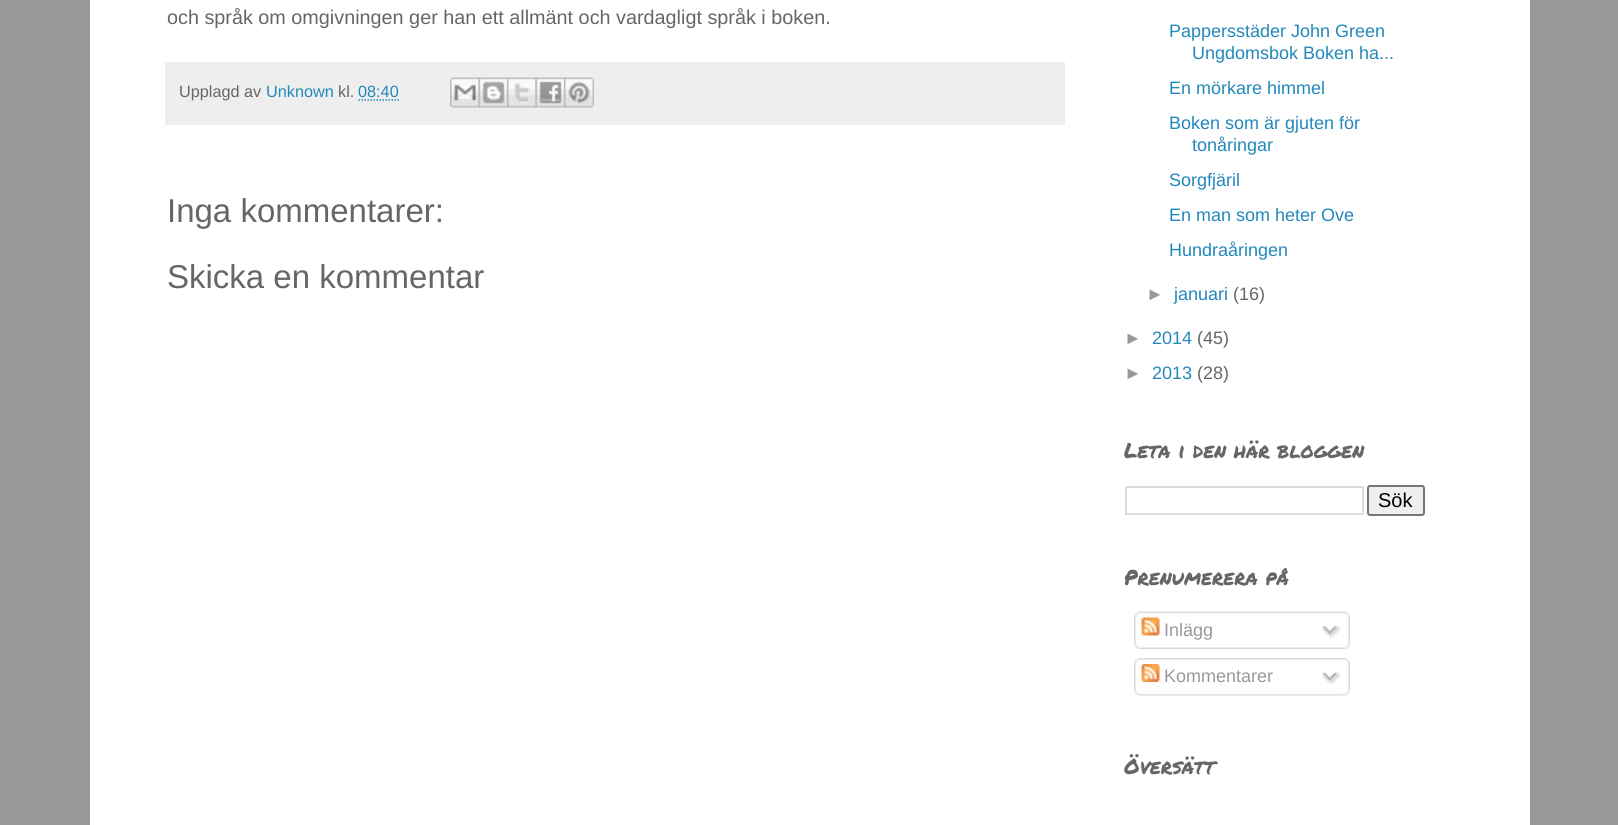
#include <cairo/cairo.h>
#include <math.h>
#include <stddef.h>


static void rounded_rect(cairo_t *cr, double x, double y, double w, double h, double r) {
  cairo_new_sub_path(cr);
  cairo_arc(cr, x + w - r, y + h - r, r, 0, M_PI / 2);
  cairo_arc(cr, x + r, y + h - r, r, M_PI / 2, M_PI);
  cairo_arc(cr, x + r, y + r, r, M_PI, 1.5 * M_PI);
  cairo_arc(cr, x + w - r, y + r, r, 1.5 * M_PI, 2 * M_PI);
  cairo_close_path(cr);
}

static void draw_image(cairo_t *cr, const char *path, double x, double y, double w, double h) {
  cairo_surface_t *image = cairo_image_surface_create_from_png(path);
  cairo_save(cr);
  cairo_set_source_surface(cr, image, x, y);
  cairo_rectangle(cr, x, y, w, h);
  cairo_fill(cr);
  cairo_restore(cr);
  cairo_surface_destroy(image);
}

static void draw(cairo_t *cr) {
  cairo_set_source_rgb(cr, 153 / 255.0, 153 / 255.0, 153 / 255.0);
  cairo_paint(cr);
  cairo_set_source_rgb(cr, 1, 1, 1);
  cairo_rectangle(cr, 90, 0, 1440, 825);
  cairo_fill(cr);
  cairo_set_source_rgb(cr, 238 / 255.0, 238 / 255.0, 238 / 255.0);
  cairo_rectangle(cr, 165, 62, 900, 63);
  cairo_fill(cr);
  cairo_new_path(cr);
  cairo_move_to(cr, 358.5, 100);
  cairo_line_to(cr, 399, 100);
  cairo_set_source_rgb(cr, 34 / 255.0, 136 / 255.0, 187 / 255.0);
  cairo_set_line_width(cr, 1.5);
  cairo_set_dash(cr, (double[]){1.5, 1.5}, 2, 0);
  cairo_stroke(cr);
  draw_image(cr, "images/1.png", 450, 77, 30, 31);
  draw_image(cr, "images/2.png", 478, 77, 31, 31);
  draw_image(cr, "images/3.png", 507, 77, 30, 31);
  draw_image(cr, "images/4.png", 535, 77, 31, 31);
  draw_image(cr, "images/5.png", 564, 77, 30, 31);
  cairo_rectangle(cr, 1126, 487, 237, 27);
  cairo_set_source_rgb(cr, 221 / 255.0, 221 / 255.0, 221 / 255.0);
  cairo_set_line_width(cr, 2);
  cairo_set_dash(cr, NULL, 0, 0);
  cairo_stroke(cr);
  cairo_set_source_rgb(cr, 239 / 255.0, 239 / 255.0, 239 / 255.0);
  rounded_rect(cr, 1368, 486, 56, 29, 2);
  cairo_fill_preserve(cr);
  cairo_set_source_rgb(cr, 118 / 255.0, 118 / 255.0, 118 / 255.0);
  cairo_stroke(cr);
  draw_image(cr, "images/6.png", 1134, 611, 216, 34);
  draw_image(cr, "images/7.png", 1141, 617, 19, 19);
  draw_image(cr, "images/8.png", 1321, 625, 20, 14);
  draw_image(cr, "images/9.png", 1134, 644, 216, 5);
  draw_image(cr, "images/10.png", 1134, 658, 216, 33);
  draw_image(cr, "images/11.png", 1141, 664, 19, 18);
  draw_image(cr, "images/12.png", 1321, 671, 20, 14);
  draw_image(cr, "images/13.png", 1134, 691, 216, 5);
  cairo_select_font_face(cr, "Liberation Sans", CAIRO_FONT_SLANT_NORMAL, CAIRO_FONT_WEIGHT_NORMAL);
  cairo_set_font_size(cr, 19.8);
  cairo_set_source_rgb(cr, 102 / 255.0, 102 / 255.0, 102 / 255.0);
  cairo_move_to(cr, 167, 24);
  cairo_show_text(cr, "och språk om omgivningen ger han ett allmänt och vardagligt språk i boken.");
  cairo_set_font_size(cr, 16.25);
  cairo_move_to(cr, 179, 97);
  cairo_show_text(cr, "Upplagd av");
  cairo_set_source_rgb(cr, 34 / 255.0, 136 / 255.0, 187 / 255.0);
  cairo_move_to(cr, 266, 97);
  cairo_show_text(cr, "Unknown");
  cairo_set_source_rgb(cr, 102 / 255.0, 102 / 255.0, 102 / 255.0);
  cairo_move_to(cr, 338, 97);
  cairo_show_text(cr, "kl.");
  cairo_set_source_rgb(cr, 34 / 255.0, 136 / 255.0, 187 / 255.0);
  cairo_move_to(cr, 358, 97);
  cairo_show_text(cr, "08:40");
  cairo_set_font_size(cr, 33);
  cairo_set_source_rgb(cr, 102 / 255.0, 102 / 255.0, 102 / 255.0);
  cairo_move_to(cr, 167, 222);
  cairo_show_text(cr, "Inga kommentarer:");
  cairo_move_to(cr, 167, 288);
  cairo_show_text(cr, "Skicka en kommentar");
  cairo_set_font_size(cr, 18);
  cairo_set_source_rgb(cr, 34 / 255.0, 136 / 255.0, 187 / 255.0);
  cairo_move_to(cr, 1169, 37);
  cairo_show_text(cr, "Pappersstäder John Green");
  cairo_move_to(cr, 1192, 59);
  cairo_show_text(cr, "Ungdomsbok Boken ha...");
  cairo_move_to(cr, 1169, 94);
  cairo_show_text(cr, "En mörkare himmel");
  cairo_move_to(cr, 1169, 129);
  cairo_show_text(cr, "Boken som är gjuten för");
  cairo_move_to(cr, 1192, 151);
  cairo_show_text(cr, "tonåringar");
  cairo_move_to(cr, 1169, 186);
  cairo_show_text(cr, "Sorgfjäril");
  cairo_move_to(cr, 1169, 221);
  cairo_show_text(cr, "En man som heter Ove");
  cairo_move_to(cr, 1169, 256);
  cairo_show_text(cr, "Hundraåringen");
  cairo_set_source_rgb(cr, 153 / 255.0, 153 / 255.0, 153 / 255.0);
  cairo_move_to(cr, 1146, 300);
  cairo_show_text(cr, "►");
  cairo_set_source_rgb(cr, 34 / 255.0, 136 / 255.0, 187 / 255.0);
  cairo_move_to(cr, 1174, 300);
  cairo_show_text(cr, "januari");
  cairo_set_source_rgb(cr, 102 / 255.0, 102 / 255.0, 102 / 255.0);
  cairo_move_to(cr, 1233, 300);
  cairo_show_text(cr, "(16)");
  cairo_set_source_rgb(cr, 153 / 255.0, 153 / 255.0, 153 / 255.0);
  cairo_move_to(cr, 1124, 344);
  cairo_show_text(cr, "►");
  cairo_set_source_rgb(cr, 34 / 255.0, 136 / 255.0, 187 / 255.0);
  cairo_move_to(cr, 1152, 344);
  cairo_show_text(cr, "2014");
  cairo_set_source_rgb(cr, 102 / 255.0, 102 / 255.0, 102 / 255.0);
  cairo_move_to(cr, 1197, 344);
  cairo_show_text(cr, "(45)");
  cairo_set_source_rgb(cr, 153 / 255.0, 153 / 255.0, 153 / 255.0);
  cairo_move_to(cr, 1124, 379);
  cairo_show_text(cr, "►");
  cairo_set_source_rgb(cr, 34 / 255.0, 136 / 255.0, 187 / 255.0);
  cairo_move_to(cr, 1152, 379);
  cairo_show_text(cr, "2013");
  cairo_set_source_rgb(cr, 102 / 255.0, 102 / 255.0, 102 / 255.0);
  cairo_move_to(cr, 1197, 379);
  cairo_show_text(cr, "(28)");
  cairo_select_font_face(cr, "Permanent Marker", CAIRO_FONT_SLANT_NORMAL, CAIRO_FONT_WEIGHT_NORMAL);
  cairo_set_font_size(cr, 21);
  cairo_move_to(cr, 1124, 458);
  cairo_show_text(cr, "Leta i den här bloggen");
  cairo_select_font_face(cr, "Liberation Sans", CAIRO_FONT_SLANT_NORMAL, CAIRO_FONT_WEIGHT_NORMAL);
  cairo_set_font_size(cr, 20);
  cairo_set_source_rgb(cr, 0, 0, 0);
  cairo_move_to(cr, 1378, 507);
  cairo_show_text(cr, "Sök");
  cairo_select_font_face(cr, "Permanent Marker", CAIRO_FONT_SLANT_NORMAL, CAIRO_FONT_WEIGHT_NORMAL);
  cairo_set_font_size(cr, 21);
  cairo_set_source_rgb(cr, 102 / 255.0, 102 / 255.0, 102 / 255.0);
  cairo_move_to(cr, 1124, 585);
  cairo_show_text(cr, "Prenumerera på");
  cairo_select_font_face(cr, "Liberation Sans", CAIRO_FONT_SLANT_NORMAL, CAIRO_FONT_WEIGHT_NORMAL);
  cairo_set_font_size(cr, 18);
  cairo_set_source_rgb(cr, 153 / 255.0, 153 / 255.0, 153 / 255.0);
  cairo_move_to(cr, 1164, 636);
  cairo_show_text(cr, "Inlägg");
  cairo_move_to(cr, 1164, 682);
  cairo_show_text(cr, "Kommentarer");
  cairo_select_font_face(cr, "Permanent Marker", CAIRO_FONT_SLANT_NORMAL, CAIRO_FONT_WEIGHT_NORMAL);
  cairo_set_font_size(cr, 21);
  cairo_set_source_rgb(cr, 102 / 255.0, 102 / 255.0, 102 / 255.0);
  cairo_move_to(cr, 1124, 774);
  cairo_show_text(cr, "Översätt");
}

int main(void) {
  cairo_surface_t *surface = cairo_image_surface_create(CAIRO_FORMAT_RGB24, 1618, 825);
  cairo_t *cr = cairo_create(surface);
  cairo_font_options_t *options = cairo_font_options_create();
  cairo_font_options_set_hint_metrics(options, CAIRO_HINT_METRICS_OFF);
  cairo_font_options_set_hint_style(options, CAIRO_HINT_STYLE_NONE);
  cairo_set_font_options(cr, options);
  cairo_set_miter_limit(cr, 4);
  draw(cr);
  cairo_surface_write_to_png(surface, "out.png");
  cairo_font_options_destroy(options);
  cairo_destroy(cr);
  cairo_surface_destroy(surface);
  return 0;
}
